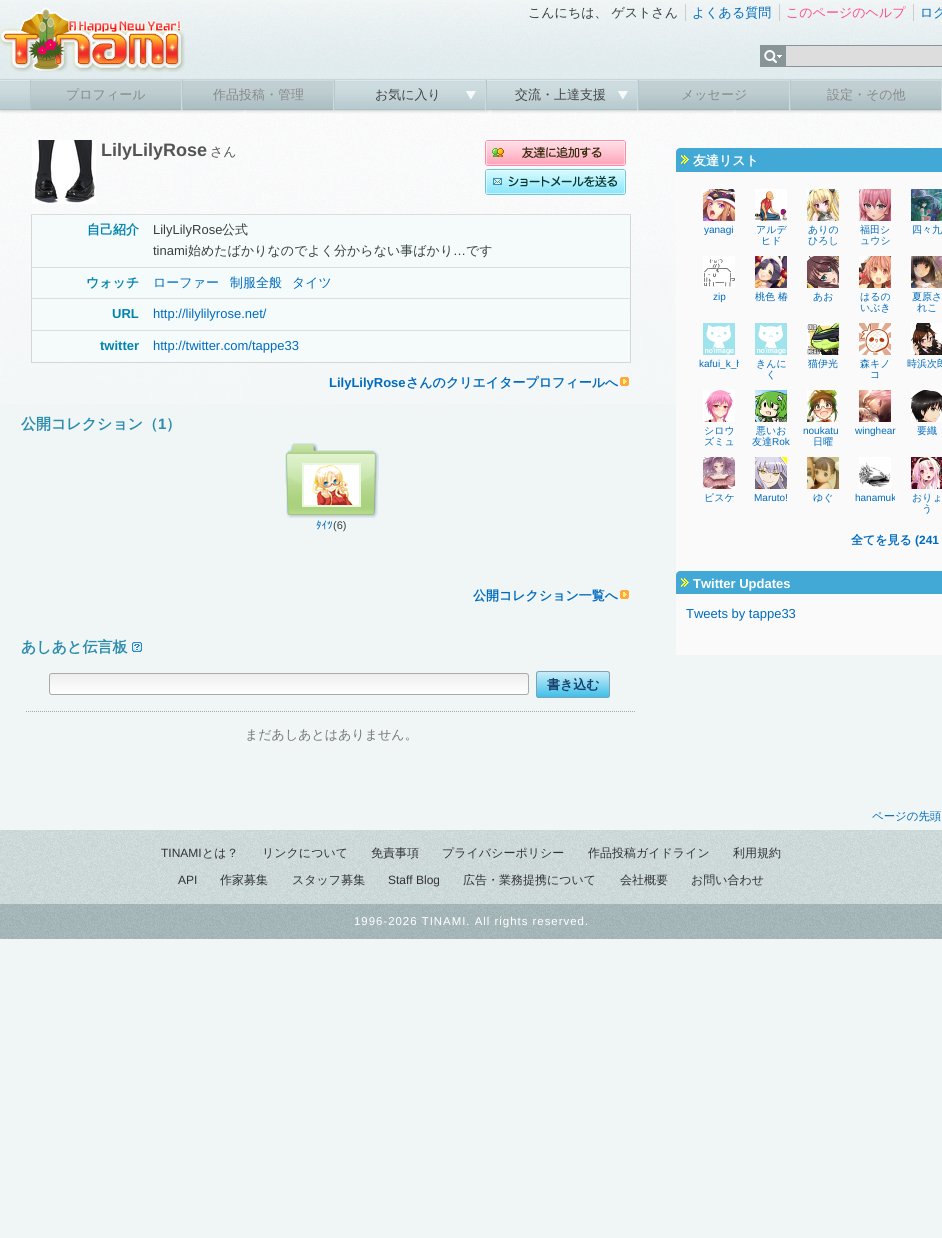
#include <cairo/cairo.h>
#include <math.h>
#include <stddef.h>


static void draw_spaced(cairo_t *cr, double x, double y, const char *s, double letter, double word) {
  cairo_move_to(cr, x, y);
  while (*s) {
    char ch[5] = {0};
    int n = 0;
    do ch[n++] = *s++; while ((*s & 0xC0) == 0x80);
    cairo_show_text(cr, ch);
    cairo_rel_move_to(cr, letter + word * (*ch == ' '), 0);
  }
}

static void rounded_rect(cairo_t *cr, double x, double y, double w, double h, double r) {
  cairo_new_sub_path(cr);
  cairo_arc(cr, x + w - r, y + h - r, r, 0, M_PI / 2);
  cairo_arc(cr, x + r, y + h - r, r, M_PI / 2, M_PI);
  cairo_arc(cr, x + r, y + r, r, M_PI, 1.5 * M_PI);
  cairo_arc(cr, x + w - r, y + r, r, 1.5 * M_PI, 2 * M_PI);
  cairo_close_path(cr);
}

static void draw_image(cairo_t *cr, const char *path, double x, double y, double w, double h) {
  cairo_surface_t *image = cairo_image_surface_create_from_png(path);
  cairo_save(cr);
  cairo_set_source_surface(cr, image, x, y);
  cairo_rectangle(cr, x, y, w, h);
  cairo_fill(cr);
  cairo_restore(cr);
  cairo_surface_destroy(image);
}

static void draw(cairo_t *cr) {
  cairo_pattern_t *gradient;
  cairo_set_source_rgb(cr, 240 / 255.0, 245 / 255.0, 246 / 255.0);
  cairo_paint(cr);
  draw_image(cr, "images/1.png", 0, 2, 942, 402);
  draw_image(cr, "images/2.png", 0, 7, 185, 65);
  cairo_set_source_rgb(cr, 204 / 255.0, 204 / 255.0, 204 / 255.0);
  cairo_rectangle(cr, 685, 4, 1, 17);
  cairo_fill(cr);
  cairo_rectangle(cr, 779, 4, 1, 17);
  cairo_fill(cr);
  cairo_rectangle(cr, 913, 4, 1, 17);
  cairo_fill(cr);
  draw_image(cr, "images/3.png", 760, 45, 25, 22);
  cairo_set_source_rgb(cr, 221 / 255.0, 221 / 255.0, 221 / 255.0);
  cairo_rectangle(cr, 785.5, 45.5, 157, 21);
  cairo_fill_preserve(cr);
  cairo_set_source_rgb(cr, 136 / 255.0, 149 / 255.0, 151 / 255.0);
  cairo_set_line_width(cr, 1);
  cairo_stroke(cr);
  draw_image(cr, "images/4.png", 31, 80, 150, 30);
  cairo_set_source_rgb(cr, 205 / 255.0, 219 / 255.0, 224 / 255.0);
  cairo_rectangle(cr, 181, 80, 1, 30);
  cairo_fill(cr);
  cairo_set_source_rgb(cr, 180 / 255.0, 199 / 255.0, 203 / 255.0);
  cairo_rectangle(cr, 30, 80, 1, 30);
  cairo_fill(cr);
  draw_image(cr, "images/4.png", 183, 80, 150, 30);
  cairo_set_source_rgb(cr, 205 / 255.0, 219 / 255.0, 224 / 255.0);
  cairo_rectangle(cr, 333, 80, 1, 30);
  cairo_fill(cr);
  cairo_set_source_rgb(cr, 180 / 255.0, 199 / 255.0, 203 / 255.0);
  cairo_rectangle(cr, 182, 80, 1, 30);
  cairo_fill(cr);
  draw_image(cr, "images/5.png", 466, 91, 10, 9);
  cairo_set_source_rgb(cr, 205 / 255.0, 219 / 255.0, 224 / 255.0);
  cairo_rectangle(cr, 485, 80, 1, 30);
  cairo_fill(cr);
  cairo_set_source_rgb(cr, 180 / 255.0, 199 / 255.0, 203 / 255.0);
  cairo_rectangle(cr, 334, 80, 1, 30);
  cairo_fill(cr);
  draw_image(cr, "images/5.png", 618, 91, 10, 9);
  cairo_set_source_rgb(cr, 205 / 255.0, 219 / 255.0, 224 / 255.0);
  cairo_rectangle(cr, 637, 80, 1, 30);
  cairo_fill(cr);
  cairo_set_source_rgb(cr, 180 / 255.0, 199 / 255.0, 203 / 255.0);
  cairo_rectangle(cr, 486, 80, 1, 30);
  cairo_fill(cr);
  draw_image(cr, "images/4.png", 639, 80, 150, 30);
  cairo_set_source_rgb(cr, 205 / 255.0, 219 / 255.0, 224 / 255.0);
  cairo_rectangle(cr, 789, 80, 1, 30);
  cairo_fill(cr);
  cairo_set_source_rgb(cr, 180 / 255.0, 199 / 255.0, 203 / 255.0);
  cairo_rectangle(cr, 638, 80, 1, 30);
  cairo_fill(cr);
  draw_image(cr, "images/4.png", 791, 80, 150, 30);
  cairo_set_source_rgb(cr, 205 / 255.0, 219 / 255.0, 224 / 255.0);
  cairo_rectangle(cr, 941, 80, 1, 30);
  cairo_fill(cr);
  cairo_set_source_rgb(cr, 180 / 255.0, 199 / 255.0, 203 / 255.0);
  cairo_rectangle(cr, 790, 80, 1, 30);
  cairo_fill(cr);
  draw_image(cr, "images/6.png", 32, 140, 64, 64);
  draw_image(cr, "images/7.png", 485, 140, 141, 26);
  draw_image(cr, "images/8.png", 485, 169, 141, 26);
  cairo_set_source_rgb(cr, 245 / 255.0, 251 / 255.0, 251 / 255.0);
  cairo_rectangle(cr, 32, 215, 598, 147);
  cairo_fill(cr);
  cairo_set_source_rgb(cr, 214 / 255.0, 214 / 255.0, 214 / 255.0);
  cairo_rectangle(cr, 630, 214, 1, 149);
  cairo_fill(cr);
  cairo_rectangle(cr, 31, 362, 600, 1);
  cairo_fill(cr);
  cairo_rectangle(cr, 31, 214, 1, 149);
  cairo_fill(cr);
  cairo_set_source_rgb(cr, 221 / 255.0, 221 / 255.0, 221 / 255.0);
  cairo_rectangle(cr, 31, 214, 600, 1);
  cairo_fill(cr);
  cairo_rectangle(cr, 31, 267, 600, 1);
  cairo_fill(cr);
  cairo_rectangle(cr, 31, 298, 600, 1);
  cairo_fill(cr);
  cairo_rectangle(cr, 31, 330, 600, 1);
  cairo_fill(cr);
  draw_image(cr, "images/9.png", 620, 377, 9, 9);
  draw_image(cr, "images/10.png", 285, 443, 94, 75);
  cairo_rectangle(cr, 303, 464, 57, 42);
  cairo_set_source_rgb(cr, 235 / 255.0, 247 / 255.0, 224 / 255.0);
  cairo_set_line_width(cr, 2);
  cairo_stroke(cr);
  draw_image(cr, "images/11.png", 304, 465, 55, 40);
  draw_image(cr, "images/12.png", 620, 590, 9, 9);
  draw_image(cr, "images/13.png", 132, 642, 10, 10);
  cairo_save(cr);
  rounded_rect(cr, 49, 673, 480, 22, 3);
  cairo_clip(cr);
  gradient = cairo_pattern_create_linear(50, 674, 50, 694);
  cairo_pattern_add_color_stop_rgba(gradient, 0, 238 / 255.0, 238 / 255.0, 238 / 255.0, 1);
  cairo_pattern_add_color_stop_rgba(gradient, 1, 1, 1, 1, 1);
  cairo_set_source(cr, gradient);
  cairo_pattern_destroy(gradient);
  cairo_rectangle(cr, 49, 674, 480, 20);
  cairo_fill(cr);
  cairo_restore(cr);
  rounded_rect(cr, 49.5, 673.5, 479, 21, 2.5);
  cairo_set_source_rgb(cr, 170 / 255.0, 170 / 255.0, 170 / 255.0);
  cairo_set_line_width(cr, 1);
  cairo_stroke(cr);
  cairo_set_source_rgb(cr, 18 / 255.0, 176 / 255.0, 228 / 255.0);
  rounded_rect(cr, 536, 671, 74, 27, 3);
  cairo_fill(cr);
  draw_image(cr, "images/14.png", 536, 671, 74, 27);
  rounded_rect(cr, 536.5, 671.5, 73, 26, 2.5);
  cairo_set_source_rgb(cr, 127 / 255.0, 161 / 255.0, 177 / 255.0);
  cairo_stroke(cr);
  cairo_new_path(cr);
  cairo_move_to(cr, 26, 711.5);
  cairo_line_to(cr, 636, 711.5);
  cairo_set_source_rgb(cr, 170 / 255.0, 170 / 255.0, 170 / 255.0);
  cairo_set_dash(cr, (double[]){1, 1}, 2, 0);
  cairo_stroke(cr);
  cairo_set_source_rgb(cr, 250 / 255.0, 250 / 255.0, 250 / 255.0);
  cairo_rectangle(cr, 676, 148, 266, 507);
  cairo_fill(cr);
  cairo_set_source_rgb(cr, 66 / 255.0, 169 / 255.0, 214 / 255.0);
  cairo_new_path(cr);
  cairo_move_to(cr, 680, 148);
  cairo_line_to(cr, 942, 148);
  cairo_curve_to(cr, 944, 148, 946, 150, 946, 152);
  cairo_line_to(cr, 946, 172);
  cairo_line_to(cr, 676, 172);
  cairo_line_to(cr, 676, 152);
  cairo_curve_to(cr, 676, 150, 678, 148, 680, 148);
  cairo_close_path(cr);
  cairo_fill(cr);
  draw_image(cr, "images/15.png", 681, 155, 8, 9);
  draw_image(cr, "images/16.png", 703, 189, 32, 32);
  draw_image(cr, "images/17.png", 755, 189, 32, 32);
  draw_image(cr, "images/18.png", 807, 189, 32, 32);
  draw_image(cr, "images/19.png", 859, 189, 32, 32);
  draw_image(cr, "images/20.png", 911, 189, 31, 32);
  draw_image(cr, "images/21.png", 703, 256, 32, 32);
  draw_image(cr, "images/22.png", 755, 256, 32, 32);
  draw_image(cr, "images/23.png", 807, 256, 32, 32);
  draw_image(cr, "images/24.png", 859, 256, 32, 32);
  draw_image(cr, "images/25.png", 911, 256, 31, 32);
  draw_image(cr, "images/26.png", 703, 323, 32, 32);
  draw_image(cr, "images/26.png", 755, 323, 32, 32);
  draw_image(cr, "images/27.png", 807, 323, 32, 32);
  draw_image(cr, "images/28.png", 859, 323, 32, 32);
  draw_image(cr, "images/29.png", 911, 323, 31, 32);
  draw_image(cr, "images/30.png", 703, 390, 32, 32);
  draw_image(cr, "images/31.png", 755, 390, 32, 32);
  draw_image(cr, "images/32.png", 807, 390, 32, 32);
  draw_image(cr, "images/33.png", 859, 390, 32, 32);
  draw_image(cr, "images/34.png", 911, 390, 31, 32);
  draw_image(cr, "images/35.png", 703, 457, 32, 32);
  draw_image(cr, "images/36.png", 755, 457, 32, 32);
  draw_image(cr, "images/37.png", 807, 457, 32, 32);
  draw_image(cr, "images/38.png", 859, 457, 32, 32);
  draw_image(cr, "images/39.png", 911, 457, 31, 32);
  cairo_new_path(cr);
  cairo_move_to(cr, 680, 571);
  cairo_line_to(cr, 942, 571);
  cairo_curve_to(cr, 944, 571, 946, 573, 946, 575);
  cairo_line_to(cr, 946, 594);
  cairo_line_to(cr, 676, 594);
  cairo_line_to(cr, 676, 575);
  cairo_curve_to(cr, 676, 573, 678, 571, 680, 571);
  cairo_close_path(cr);
  cairo_fill(cr);
  draw_image(cr, "images/15.png", 681, 578, 8, 9);
  cairo_set_source_rgb(cr, 214 / 255.0, 226 / 255.0, 227 / 255.0);
  cairo_rectangle(cr, 0, 830, 942, 74);
  cairo_fill(cr);
  draw_image(cr, "images/40.png", 0, 830, 942, 74);
  cairo_set_source_rgb(cr, 169 / 255.0, 188 / 255.0, 191 / 255.0);
  cairo_rectangle(cr, 0, 904, 942, 35);
  cairo_fill(cr);
  draw_image(cr, "images/41.png", 0, 904, 942, 35);
  cairo_select_font_face(cr, "WenQuanYi Zen Hei Medium", CAIRO_FONT_SLANT_NORMAL, CAIRO_FONT_WEIGHT_NORMAL);
  cairo_set_font_size(cr, 13);
  cairo_set_source_rgb(cr, 54 / 255.0, 63 / 255.0, 63 / 255.0);
  cairo_move_to(cr, 528, 17);
  cairo_show_text(cr, "こんにちは、 ゲストさん");
  cairo_set_source_rgb(cr, 0, 107 / 255.0, 190 / 255.0);
  cairo_move_to(cr, 692, 17);
  cairo_show_text(cr, "よくある質問");
  cairo_set_source_rgb(cr, 1, 75 / 255.0, 133 / 255.0);
  cairo_move_to(cr, 786, 17);
  cairo_show_text(cr, "このページのヘルプ");
  cairo_set_source_rgb(cr, 0, 107 / 255.0, 190 / 255.0);
  cairo_move_to(cr, 920, 17);
  cairo_show_text(cr, "ログ");
  cairo_set_source_rgb(cr, 136 / 255.0, 136 / 255.0, 136 / 255.0);
  cairo_move_to(cr, 66, 99);
  cairo_show_text(cr, "プロフィール");
  cairo_move_to(cr, 213, 99);
  cairo_show_text(cr, "作品投稿・管理");
  cairo_set_source_rgb(cr, 68 / 255.0, 68 / 255.0, 68 / 255.0);
  cairo_move_to(cr, 375, 99);
  cairo_show_text(cr, "お気に入り");
  cairo_move_to(cr, 515, 99);
  cairo_show_text(cr, "交流・上達支援");
  cairo_set_source_rgb(cr, 136 / 255.0, 136 / 255.0, 136 / 255.0);
  cairo_move_to(cr, 681, 99);
  cairo_show_text(cr, "メッセージ");
  cairo_move_to(cr, 827, 99);
  cairo_show_text(cr, "設定・その他");
  cairo_select_font_face(cr, "Liberation Sans", CAIRO_FONT_SLANT_NORMAL, CAIRO_FONT_WEIGHT_BOLD);
  cairo_set_font_size(cr, 18);
  cairo_set_source_rgb(cr, 85 / 255.0, 85 / 255.0, 85 / 255.0);
  cairo_move_to(cr, 101, 156);
  cairo_show_text(cr, "LilyLilyRose");
  cairo_select_font_face(cr, "WenQuanYi Zen Hei Medium", CAIRO_FONT_SLANT_NORMAL, CAIRO_FONT_WEIGHT_NORMAL);
  cairo_set_font_size(cr, 13);
  cairo_move_to(cr, 210, 156);
  cairo_show_text(cr, "さん");
  cairo_select_font_face(cr, "WenQuanYi Zen Hei", CAIRO_FONT_SLANT_NORMAL, CAIRO_FONT_WEIGHT_BOLD);
  cairo_set_source_rgb(cr, 0, 131 / 255.0, 174 / 255.0);
  cairo_move_to(cr, 87, 234);
  cairo_show_text(cr, "自己紹介");
  cairo_select_font_face(cr, "Liberation Sans", CAIRO_FONT_SLANT_NORMAL, CAIRO_FONT_WEIGHT_NORMAL);
  cairo_set_source_rgb(cr, 54 / 255.0, 63 / 255.0, 63 / 255.0);
  cairo_move_to(cr, 153, 234);
  cairo_show_text(cr, "LilyLilyRose");
  cairo_select_font_face(cr, "WenQuanYi Zen Hei Medium", CAIRO_FONT_SLANT_NORMAL, CAIRO_FONT_WEIGHT_NORMAL);
  cairo_move_to(cr, 222, 234);
  cairo_show_text(cr, "公式");
  cairo_select_font_face(cr, "Liberation Sans", CAIRO_FONT_SLANT_NORMAL, CAIRO_FONT_WEIGHT_NORMAL);
  cairo_move_to(cr, 153, 255);
  cairo_show_text(cr, "tinami");
  cairo_select_font_face(cr, "WenQuanYi Zen Hei Medium", CAIRO_FONT_SLANT_NORMAL, CAIRO_FONT_WEIGHT_NORMAL);
  cairo_move_to(cr, 188, 255);
  cairo_show_text(cr, "始めたばかりなのでよく分からない事ばかり");
  cairo_select_font_face(cr, "Liberation Sans", CAIRO_FONT_SLANT_NORMAL, CAIRO_FONT_WEIGHT_NORMAL);
  cairo_move_to(cr, 453, 255);
  cairo_show_text(cr, "…");
  cairo_select_font_face(cr, "WenQuanYi Zen Hei Medium", CAIRO_FONT_SLANT_NORMAL, CAIRO_FONT_WEIGHT_NORMAL);
  cairo_move_to(cr, 466, 255);
  cairo_show_text(cr, "です");
  cairo_select_font_face(cr, "WenQuanYi Zen Hei", CAIRO_FONT_SLANT_NORMAL, CAIRO_FONT_WEIGHT_BOLD);
  cairo_set_source_rgb(cr, 0, 131 / 255.0, 174 / 255.0);
  cairo_move_to(cr, 86, 287);
  cairo_show_text(cr, "ウォッチ");
  cairo_select_font_face(cr, "WenQuanYi Zen Hei Medium", CAIRO_FONT_SLANT_NORMAL, CAIRO_FONT_WEIGHT_NORMAL);
  cairo_set_source_rgb(cr, 0, 107 / 255.0, 190 / 255.0);
  cairo_move_to(cr, 153, 287);
  cairo_show_text(cr, "ローファー");
  cairo_move_to(cr, 230, 287);
  cairo_show_text(cr, "制服全般");
  cairo_move_to(cr, 292, 287);
  cairo_show_text(cr, "タイツ");
  cairo_select_font_face(cr, "Liberation Sans", CAIRO_FONT_SLANT_NORMAL, CAIRO_FONT_WEIGHT_BOLD);
  cairo_set_source_rgb(cr, 0, 131 / 255.0, 174 / 255.0);
  cairo_move_to(cr, 112, 318);
  cairo_show_text(cr, "URL");
  cairo_select_font_face(cr, "Liberation Sans", CAIRO_FONT_SLANT_NORMAL, CAIRO_FONT_WEIGHT_NORMAL);
  cairo_set_source_rgb(cr, 0, 107 / 255.0, 190 / 255.0);
  cairo_move_to(cr, 153, 318);
  cairo_show_text(cr, "http://lilylilyrose.net/");
  cairo_select_font_face(cr, "Liberation Sans", CAIRO_FONT_SLANT_NORMAL, CAIRO_FONT_WEIGHT_BOLD);
  cairo_set_source_rgb(cr, 0, 131 / 255.0, 174 / 255.0);
  cairo_move_to(cr, 100, 350);
  cairo_show_text(cr, "twitter");
  cairo_select_font_face(cr, "Liberation Sans", CAIRO_FONT_SLANT_NORMAL, CAIRO_FONT_WEIGHT_NORMAL);
  cairo_set_source_rgb(cr, 0, 107 / 255.0, 190 / 255.0);
  cairo_move_to(cr, 153, 350);
  cairo_show_text(cr, "http://twitter.com/tappe33");
  cairo_select_font_face(cr, "Liberation Sans", CAIRO_FONT_SLANT_NORMAL, CAIRO_FONT_WEIGHT_BOLD);
  cairo_move_to(cr, 329, 387);
  cairo_show_text(cr, "LilyLilyRose");
  cairo_select_font_face(cr, "WenQuanYi Zen Hei", CAIRO_FONT_SLANT_NORMAL, CAIRO_FONT_WEIGHT_BOLD);
  cairo_move_to(cr, 406, 387);
  cairo_show_text(cr, "さんのクリエイタープロフィールへ");
  cairo_set_font_size(cr, 15);
  cairo_set_source_rgb(cr, 44 / 255.0, 140 / 255.0, 171 / 255.0);
  cairo_move_to(cr, 21, 429);
  cairo_show_text(cr, "公開コレクション（");
  cairo_select_font_face(cr, "Liberation Sans", CAIRO_FONT_SLANT_NORMAL, CAIRO_FONT_WEIGHT_BOLD);
  cairo_move_to(cr, 158, 429);
  cairo_show_text(cr, "1");
  cairo_select_font_face(cr, "WenQuanYi Zen Hei", CAIRO_FONT_SLANT_NORMAL, CAIRO_FONT_WEIGHT_BOLD);
  cairo_move_to(cr, 166, 429);
  cairo_show_text(cr, "）");
  cairo_select_font_face(cr, "IPAGothic", CAIRO_FONT_SLANT_NORMAL, CAIRO_FONT_WEIGHT_NORMAL);
  cairo_set_font_size(cr, 11);
  cairo_set_source_rgb(cr, 0, 107 / 255.0, 190 / 255.0);
  cairo_move_to(cr, 316, 529);
  cairo_show_text(cr, "ﾀｲﾂ");
  cairo_select_font_face(cr, "Liberation Sans", CAIRO_FONT_SLANT_NORMAL, CAIRO_FONT_WEIGHT_NORMAL);
  cairo_set_source_rgb(cr, 54 / 255.0, 63 / 255.0, 63 / 255.0);
  cairo_move_to(cr, 333, 529);
  cairo_show_text(cr, "(6)");
  cairo_select_font_face(cr, "WenQuanYi Zen Hei", CAIRO_FONT_SLANT_NORMAL, CAIRO_FONT_WEIGHT_BOLD);
  cairo_set_font_size(cr, 13);
  cairo_set_source_rgb(cr, 0, 107 / 255.0, 190 / 255.0);
  cairo_move_to(cr, 473, 600);
  cairo_show_text(cr, "公開コレクション一覧へ");
  cairo_set_font_size(cr, 15);
  cairo_set_source_rgb(cr, 44 / 255.0, 140 / 255.0, 171 / 255.0);
  cairo_move_to(cr, 21, 652);
  cairo_show_text(cr, "あしあと伝言板");
  cairo_set_font_size(cr, 13);
  cairo_set_source_rgb(cr, 19 / 255.0, 61 / 255.0, 104 / 255.0);
  cairo_move_to(cr, 547, 689);
  cairo_show_text(cr, "書き込む");
  cairo_select_font_face(cr, "WenQuanYi Zen Hei Medium", CAIRO_FONT_SLANT_NORMAL, CAIRO_FONT_WEIGHT_NORMAL);
  cairo_set_source_rgb(cr, 119 / 255.0, 119 / 255.0, 119 / 255.0);
  cairo_move_to(cr, 245, 739);
  cairo_show_text(cr, "まだあしあとはありません。");
  cairo_select_font_face(cr, "WenQuanYi Zen Hei", CAIRO_FONT_SLANT_NORMAL, CAIRO_FONT_WEIGHT_BOLD);
  cairo_set_source_rgb(cr, 1, 1, 1);
  cairo_move_to(cr, 693, 165);
  cairo_show_text(cr, "友達リスト");
  cairo_select_font_face(cr, "Liberation Sans", CAIRO_FONT_SLANT_NORMAL, CAIRO_FONT_WEIGHT_NORMAL);
  cairo_set_font_size(cr, 10);
  cairo_set_source_rgb(cr, 0, 107 / 255.0, 190 / 255.0);
  cairo_move_to(cr, 704, 233);
  cairo_show_text(cr, "yanagi");
  cairo_select_font_face(cr, "WenQuanYi Zen Hei Medium", CAIRO_FONT_SLANT_NORMAL, CAIRO_FONT_WEIGHT_NORMAL);
  cairo_move_to(cr, 756, 233);
  cairo_show_text(cr, "アルデ");
  cairo_move_to(cr, 761, 244);
  cairo_show_text(cr, "ヒド");
  cairo_move_to(cr, 808, 233);
  cairo_show_text(cr, "ありの");
  cairo_move_to(cr, 808, 244);
  cairo_show_text(cr, "ひろし");
  cairo_move_to(cr, 860, 233);
  cairo_show_text(cr, "福田シ");
  cairo_move_to(cr, 860, 244);
  cairo_show_text(cr, "ュウシ");
  cairo_move_to(cr, 912, 233);
  cairo_show_text(cr, "四々九");
  cairo_select_font_face(cr, "Liberation Sans", CAIRO_FONT_SLANT_NORMAL, CAIRO_FONT_WEIGHT_NORMAL);
  cairo_move_to(cr, 713, 300);
  cairo_show_text(cr, "zip");
  cairo_select_font_face(cr, "WenQuanYi Zen Hei Medium", CAIRO_FONT_SLANT_NORMAL, CAIRO_FONT_WEIGHT_NORMAL);
  cairo_move_to(cr, 755, 300);
  cairo_show_text(cr, "桃色 椿");
  cairo_move_to(cr, 813, 300);
  cairo_show_text(cr, "あお");
  cairo_move_to(cr, 860, 300);
  cairo_show_text(cr, "はるの");
  cairo_move_to(cr, 860, 311);
  cairo_show_text(cr, "いぶき");
  cairo_move_to(cr, 912, 300);
  cairo_show_text(cr, "夏原さ");
  cairo_move_to(cr, 917, 311);
  cairo_show_text(cr, "れこ");
  cairo_save(cr);
  cairo_rectangle(cr, 699, 358, 40, 11);
  cairo_clip(cr);
  cairo_select_font_face(cr, "Liberation Sans", CAIRO_FONT_SLANT_NORMAL, CAIRO_FONT_WEIGHT_NORMAL);
  cairo_move_to(cr, 699, 367);
  cairo_show_text(cr, "kafui_k_h");
  cairo_restore(cr);
  cairo_move_to(cr, 756, 367);
  cairo_show_text(cr, "きんに");
  cairo_move_to(cr, 766, 378);
  cairo_show_text(cr, "く");
  cairo_move_to(cr, 808, 367);
  cairo_show_text(cr, "猫伊光");
  cairo_move_to(cr, 860, 367);
  cairo_show_text(cr, "森キノ");
  cairo_move_to(cr, 870, 378);
  cairo_show_text(cr, "コ");
  cairo_move_to(cr, 907, 367);
  cairo_show_text(cr, "時浜次郎");
  cairo_move_to(cr, 704, 434);
  cairo_show_text(cr, "シロウ");
  cairo_move_to(cr, 704, 445);
  cairo_show_text(cr, "ズミュ");
  cairo_move_to(cr, 756, 434);
  cairo_show_text(cr, "悪いお");
  cairo_move_to(cr, 752, 445);
  cairo_show_text(cr, "友達");
  cairo_select_font_face(cr, "Liberation Sans", CAIRO_FONT_SLANT_NORMAL, CAIRO_FONT_WEIGHT_NORMAL);
  cairo_move_to(cr, 772, 445);
  cairo_show_text(cr, "Rok");
  cairo_move_to(cr, 803, 434);
  cairo_show_text(cr, "noukatu");
  cairo_select_font_face(cr, "WenQuanYi Zen Hei Medium", CAIRO_FONT_SLANT_NORMAL, CAIRO_FONT_WEIGHT_NORMAL);
  cairo_move_to(cr, 813, 445);
  cairo_show_text(cr, "日曜");
  cairo_select_font_face(cr, "Liberation Sans", CAIRO_FONT_SLANT_NORMAL, CAIRO_FONT_WEIGHT_NORMAL);
  cairo_move_to(cr, 855, 434);
  cairo_show_text(cr, "winghear");
  cairo_select_font_face(cr, "WenQuanYi Zen Hei Medium", CAIRO_FONT_SLANT_NORMAL, CAIRO_FONT_WEIGHT_NORMAL);
  cairo_move_to(cr, 917, 434);
  cairo_show_text(cr, "要織");
  cairo_move_to(cr, 704, 501);
  cairo_show_text(cr, "ピスケ");
  cairo_select_font_face(cr, "Liberation Sans", CAIRO_FONT_SLANT_NORMAL, CAIRO_FONT_WEIGHT_NORMAL);
  cairo_move_to(cr, 754, 501);
  cairo_show_text(cr, "Maruto!");
  cairo_select_font_face(cr, "WenQuanYi Zen Hei Medium", CAIRO_FONT_SLANT_NORMAL, CAIRO_FONT_WEIGHT_NORMAL);
  cairo_move_to(cr, 813, 501);
  cairo_show_text(cr, "ゆぐ");
  cairo_save(cr);
  cairo_rectangle(cr, 855, 492, 40, 11);
  cairo_clip(cr);
  cairo_select_font_face(cr, "Liberation Sans", CAIRO_FONT_SLANT_NORMAL, CAIRO_FONT_WEIGHT_NORMAL);
  cairo_move_to(cr, 855, 501);
  cairo_show_text(cr, "hanamuk");
  cairo_restore(cr);
  cairo_move_to(cr, 912, 501);
  cairo_show_text(cr, "おりょ");
  cairo_move_to(cr, 922, 512);
  cairo_show_text(cr, "う");
  cairo_select_font_face(cr, "WenQuanYi Zen Hei", CAIRO_FONT_SLANT_NORMAL, CAIRO_FONT_WEIGHT_BOLD);
  cairo_set_font_size(cr, 12);
  cairo_move_to(cr, 851, 544);
  cairo_show_text(cr, "全てを見る");
  cairo_select_font_face(cr, "Liberation Sans", CAIRO_FONT_SLANT_NORMAL, CAIRO_FONT_WEIGHT_BOLD);
  cairo_move_to(cr, 915, 544);
  cairo_show_text(cr, "(241");
  cairo_set_font_size(cr, 13);
  cairo_set_source_rgb(cr, 1, 1, 1);
  cairo_move_to(cr, 693, 588);
  cairo_show_text(cr, "Twitter Updates");
  cairo_select_font_face(cr, "Liberation Sans", CAIRO_FONT_SLANT_NORMAL, CAIRO_FONT_WEIGHT_NORMAL);
  cairo_set_source_rgb(cr, 0, 107 / 255.0, 190 / 255.0);
  cairo_move_to(cr, 686, 618);
  cairo_show_text(cr, "Tweets by tappe33");
  cairo_select_font_face(cr, "WenQuanYi Zen Hei Medium", CAIRO_FONT_SLANT_NORMAL, CAIRO_FONT_WEIGHT_NORMAL);
  cairo_set_font_size(cr, 11.4);
  cairo_move_to(cr, 872, 820);
  cairo_show_text(cr, "ページの先頭");
  cairo_select_font_face(cr, "Liberation Sans", CAIRO_FONT_SLANT_NORMAL, CAIRO_FONT_WEIGHT_NORMAL);
  cairo_set_font_size(cr, 12);
  cairo_set_source_rgb(cr, 51 / 255.0, 51 / 255.0, 51 / 255.0);
  cairo_move_to(cr, 161, 857);
  cairo_show_text(cr, "TINAMI");
  cairo_select_font_face(cr, "WenQuanYi Zen Hei Medium", CAIRO_FONT_SLANT_NORMAL, CAIRO_FONT_WEIGHT_NORMAL);
  cairo_move_to(cr, 202, 857);
  cairo_show_text(cr, "とは？");
  cairo_move_to(cr, 262, 857);
  cairo_show_text(cr, "リンクについて");
  cairo_move_to(cr, 371, 857);
  cairo_show_text(cr, "免責事項");
  cairo_move_to(cr, 442, 857);
  cairo_show_text(cr, "プライバシーポリシー");
  cairo_move_to(cr, 588, 857);
  cairo_show_text(cr, "作品投稿ガイドライン");
  cairo_move_to(cr, 733, 857);
  cairo_show_text(cr, "利用規約");
  cairo_select_font_face(cr, "Liberation Sans", CAIRO_FONT_SLANT_NORMAL, CAIRO_FONT_WEIGHT_NORMAL);
  cairo_move_to(cr, 178, 884);
  cairo_show_text(cr, "API");
  cairo_select_font_face(cr, "WenQuanYi Zen Hei Medium", CAIRO_FONT_SLANT_NORMAL, CAIRO_FONT_WEIGHT_NORMAL);
  cairo_move_to(cr, 220, 884);
  cairo_show_text(cr, "作家募集");
  cairo_move_to(cr, 292, 884);
  cairo_show_text(cr, "スタッフ募集");
  cairo_select_font_face(cr, "Liberation Sans", CAIRO_FONT_SLANT_NORMAL, CAIRO_FONT_WEIGHT_NORMAL);
  cairo_move_to(cr, 388, 884);
  cairo_show_text(cr, "Staff Blog");
  cairo_select_font_face(cr, "WenQuanYi Zen Hei Medium", CAIRO_FONT_SLANT_NORMAL, CAIRO_FONT_WEIGHT_NORMAL);
  cairo_move_to(cr, 463, 884);
  cairo_show_text(cr, "広告・業務提携について");
  cairo_move_to(cr, 620, 884);
  cairo_show_text(cr, "会社概要");
  cairo_move_to(cr, 691, 884);
  cairo_show_text(cr, "お問い合わせ");
  cairo_select_font_face(cr, "Liberation Sans", CAIRO_FONT_SLANT_NORMAL, CAIRO_FONT_WEIGHT_NORMAL);
  cairo_set_font_size(cr, 11.4);
  cairo_set_source_rgb(cr, 1, 1, 1);
  draw_spaced(cr, 354, 925, "1996-2026 TINAMI. All rights reserved.", 1, 0);
}

int main(void) {
  cairo_surface_t *surface = cairo_image_surface_create(CAIRO_FORMAT_RGB24, 942, 1238);
  cairo_t *cr = cairo_create(surface);
  cairo_font_options_t *options = cairo_font_options_create();
  cairo_font_options_set_hint_metrics(options, CAIRO_HINT_METRICS_OFF);
  cairo_font_options_set_hint_style(options, CAIRO_HINT_STYLE_NONE);
  cairo_set_font_options(cr, options);
  cairo_set_miter_limit(cr, 4);
  draw(cr);
  cairo_surface_write_to_png(surface, "out.png");
  cairo_font_options_destroy(options);
  cairo_destroy(cr);
  cairo_surface_destroy(surface);
  return 0;
}
